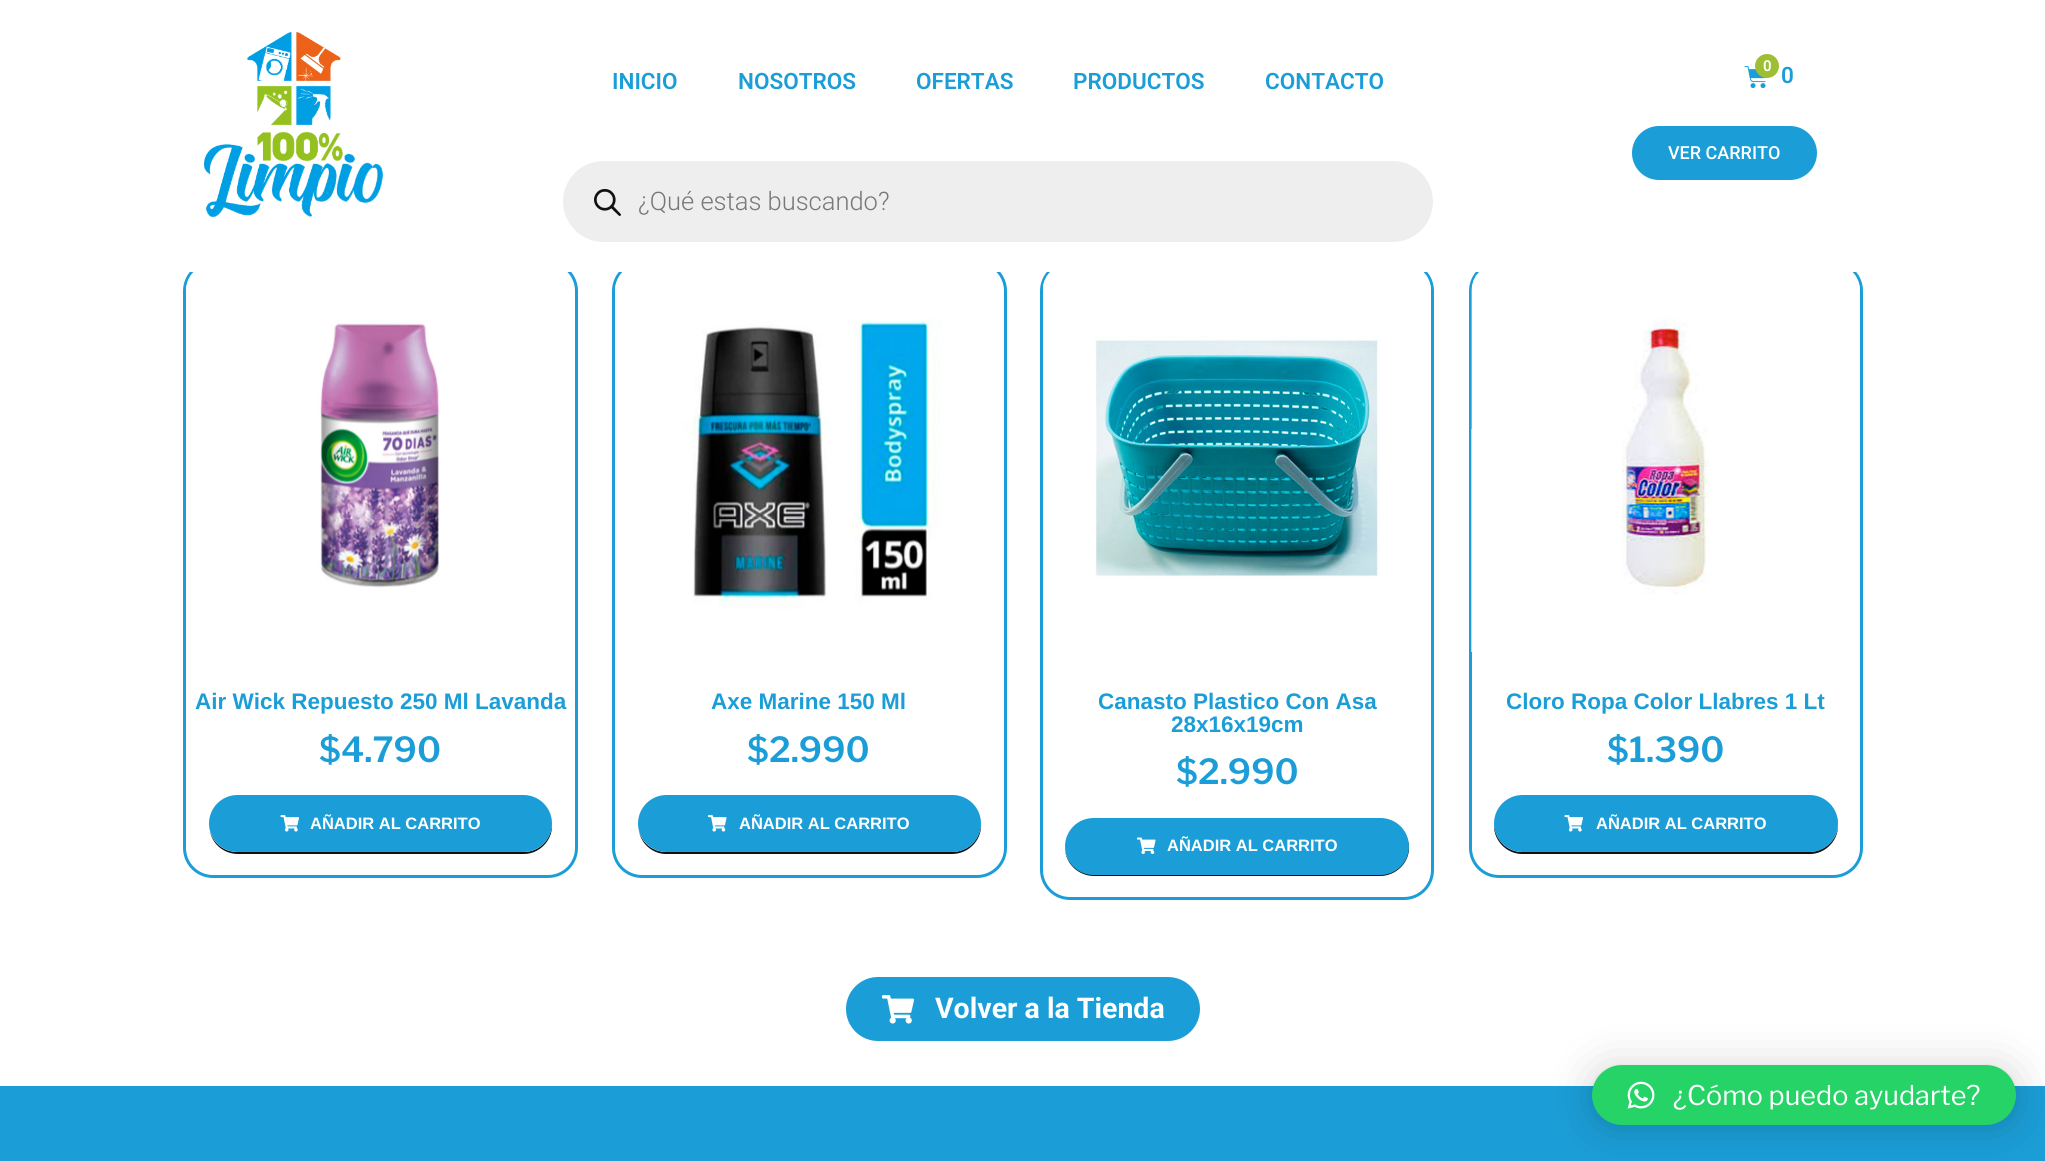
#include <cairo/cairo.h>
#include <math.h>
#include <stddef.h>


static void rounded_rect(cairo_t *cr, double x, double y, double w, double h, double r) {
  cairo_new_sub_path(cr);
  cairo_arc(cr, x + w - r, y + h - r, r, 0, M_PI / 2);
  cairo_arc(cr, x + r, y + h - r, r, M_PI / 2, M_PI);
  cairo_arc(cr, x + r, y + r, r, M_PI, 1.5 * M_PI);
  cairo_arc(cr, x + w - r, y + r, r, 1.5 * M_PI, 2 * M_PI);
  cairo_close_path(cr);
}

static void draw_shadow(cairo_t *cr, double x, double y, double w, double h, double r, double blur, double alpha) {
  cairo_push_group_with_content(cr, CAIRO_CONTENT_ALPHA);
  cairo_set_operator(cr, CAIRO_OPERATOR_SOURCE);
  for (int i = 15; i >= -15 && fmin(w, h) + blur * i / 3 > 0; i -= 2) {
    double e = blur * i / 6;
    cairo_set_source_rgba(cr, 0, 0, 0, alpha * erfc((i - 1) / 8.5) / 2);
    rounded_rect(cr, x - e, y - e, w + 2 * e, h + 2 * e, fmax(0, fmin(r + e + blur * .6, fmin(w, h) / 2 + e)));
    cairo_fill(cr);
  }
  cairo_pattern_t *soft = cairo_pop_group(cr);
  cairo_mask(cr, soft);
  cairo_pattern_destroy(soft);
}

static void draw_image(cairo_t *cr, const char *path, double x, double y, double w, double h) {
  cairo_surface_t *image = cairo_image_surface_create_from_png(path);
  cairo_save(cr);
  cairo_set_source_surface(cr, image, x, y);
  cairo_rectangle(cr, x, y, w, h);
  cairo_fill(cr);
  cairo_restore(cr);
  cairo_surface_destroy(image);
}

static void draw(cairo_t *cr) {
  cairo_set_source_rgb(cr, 1, 1, 1);
  cairo_paint(cr);
  rounded_rect(cr, 184.5, 262.5, 392, 614, 28.5);
  cairo_set_source_rgb(cr, 27 / 255.0, 158 / 255.0, 215 / 255.0);
  cairo_set_line_width(cr, 3);
  cairo_stroke(cr);
  rounded_rect(cr, 613.5, 262.5, 392, 614, 28.5);
  cairo_stroke(cr);
  rounded_rect(cr, 1041.5, 262.5, 391, 636, 28.5);
  cairo_stroke(cr);
  rounded_rect(cr, 1470.5, 262.5, 391, 614, 28.5);
  cairo_stroke(cr);
  cairo_set_source_rgb(cr, 1, 1, 1);
  cairo_rectangle(cr, 189, 261, 1668, 11);
  cairo_fill(cr);
  draw_image(cr, "images/1.png", 204, 31, 179, 186);
  cairo_set_source_rgb(cr, 238 / 255.0, 238 / 255.0, 238 / 255.0);
  rounded_rect(cr, 563, 161, 870, 81, 40.5);
  cairo_fill(cr);
  draw_image(cr, "images/2.png", 594, 189, 27, 27);
  draw_image(cr, "images/3.png", 1744, 66, 23, 23);
  cairo_set_source_rgb(cr, 158 / 255.0, 190 / 255.0, 51 / 255.0);
  cairo_arc(cr, 1767, 66, 12, 0, 2 * M_PI);
  cairo_fill(cr);
  cairo_set_source_rgb(cr, 27 / 255.0, 158 / 255.0, 215 / 255.0);
  rounded_rect(cr, 1632, 126, 185, 54, 27);
  cairo_fill(cr);
  draw_image(cr, "images/4.png", 186, 272, 389, 316);
  cairo_set_source_rgb(cr, 15 / 255.0, 15 / 255.0, 15 / 255.0);
  cairo_new_path(cr);
  cairo_move_to(cr, 210, 831);
  cairo_curve_to(cr, 212, 844, 224, 854, 238, 854);
  cairo_line_to(cr, 524, 854);
  cairo_curve_to(cr, 539, 854, 552, 841, 552, 826);
  cairo_line_to(cr, 552, 824);
  cairo_curve_to(cr, 551, 840, 539, 852, 524, 852);
  cairo_line_to(cr, 237, 852);
  cairo_curve_to(cr, 224, 852, 213, 843, 210, 831);
  cairo_close_path(cr);
  cairo_fill(cr);
  cairo_set_source_rgb(cr, 27 / 255.0, 158 / 255.0, 215 / 255.0);
  rounded_rect(cr, 209, 795, 343, 57, 28.5);
  cairo_fill(cr);
  draw_image(cr, "images/5.png", 280, 815, 19, 17);
  draw_image(cr, "images/6.png", 615, 272, 389, 337);
  cairo_set_source_rgb(cr, 15 / 255.0, 15 / 255.0, 15 / 255.0);
  cairo_new_path(cr);
  cairo_move_to(cr, 639, 831);
  cairo_curve_to(cr, 641, 844, 653, 854, 666, 854);
  cairo_line_to(cr, 952, 854);
  cairo_curve_to(cr, 968, 854, 981, 841, 981, 826);
  cairo_line_to(cr, 981, 824);
  cairo_curve_to(cr, 980, 840, 968, 852, 952, 852);
  cairo_line_to(cr, 666, 852);
  cairo_curve_to(cr, 653, 852, 642, 843, 639, 831);
  cairo_close_path(cr);
  cairo_fill(cr);
  cairo_set_source_rgb(cr, 27 / 255.0, 158 / 255.0, 215 / 255.0);
  rounded_rect(cr, 638, 795, 343, 57, 28.5);
  cairo_fill(cr);
  draw_image(cr, "images/7.png", 708, 815, 19, 17);
  draw_image(cr, "images/8.png", 1043, 272, 388, 306);
  cairo_set_source_rgb(cr, 15 / 255.0, 15 / 255.0, 15 / 255.0);
  cairo_new_path(cr);
  cairo_move_to(cr, 1065, 847);
  cairo_line_to(cr, 1065, 848);
  cairo_curve_to(cr, 1065, 863, 1078, 876, 1094, 876);
  cairo_line_to(cr, 1380, 876);
  cairo_curve_to(cr, 1396, 876, 1409, 863, 1409, 848);
  cairo_curve_to(cr, 1409, 844, 1408, 841, 1407, 838);
  cairo_curve_to(cr, 1408, 840, 1408, 843, 1408, 846);
  cairo_curve_to(cr, 1408, 862, 1396, 874, 1380, 874);
  cairo_line_to(cr, 1094, 874);
  cairo_curve_to(cr, 1078, 874, 1065, 862, 1065, 847);
  cairo_close_path(cr);
  cairo_fill(cr);
  cairo_set_source_rgb(cr, 27 / 255.0, 158 / 255.0, 215 / 255.0);
  rounded_rect(cr, 1065, 818, 344, 57, 28.5);
  cairo_fill(cr);
  draw_image(cr, "images/9.png", 1137, 837, 19, 17);
  draw_image(cr, "images/10.png", 1471, 272, 389, 380);
  cairo_set_source_rgb(cr, 15 / 255.0, 15 / 255.0, 15 / 255.0);
  cairo_new_path(cr);
  cairo_move_to(cr, 1494, 824);
  cairo_line_to(cr, 1494, 826);
  cairo_curve_to(cr, 1494, 841, 1507, 854, 1522, 854);
  cairo_line_to(cr, 1810, 854);
  cairo_curve_to(cr, 1825, 854, 1838, 841, 1838, 826);
  cairo_curve_to(cr, 1838, 823, 1838, 820, 1837, 818);
  cairo_line_to(cr, 1838, 824);
  cairo_curve_to(cr, 1838, 839, 1825, 852, 1809, 852);
  cairo_line_to(cr, 1522, 852);
  cairo_curve_to(cr, 1507, 852, 1495, 840, 1494, 824);
  cairo_close_path(cr);
  cairo_fill(cr);
  cairo_set_source_rgb(cr, 27 / 255.0, 158 / 255.0, 215 / 255.0);
  rounded_rect(cr, 1494, 795, 344, 57, 28.5);
  cairo_fill(cr);
  draw_image(cr, "images/5.png", 1564, 815, 19, 17);
  rounded_rect(cr, 846, 977, 354, 64, 32);
  cairo_fill(cr);
  draw_image(cr, "images/11.png", 882, 995, 32, 29);
  cairo_rectangle(cr, 0, 1086, 2045, 75);
  cairo_fill(cr);
  cairo_set_source_rgb(cr, 0, 0, 0);
  draw_shadow(cr, 1592, 1068, 424, 60, 30, 24, 0.16);
  draw_shadow(cr, 1592, 1067, 424, 60, 30, 4.5, 0.06);
  cairo_set_source_rgb(cr, 37 / 255.0, 211 / 255.0, 102 / 255.0);
  rounded_rect(cr, 1592, 1065, 424, 60, 30);
  cairo_fill(cr);
  draw_image(cr, "images/12.png", 1627, 1081, 28, 28);
  cairo_select_font_face(cr, "Roboto SemiBold", CAIRO_FONT_SLANT_NORMAL, CAIRO_FONT_WEIGHT_NORMAL);
  cairo_set_font_size(cr, 22.5);
  cairo_set_source_rgb(cr, 27 / 255.0, 158 / 255.0, 215 / 255.0);
  cairo_move_to(cr, 612, 89);
  cairo_show_text(cr, "INICIO");
  cairo_move_to(cr, 738, 89);
  cairo_show_text(cr, "NOSOTROS");
  cairo_move_to(cr, 916, 89);
  cairo_show_text(cr, "OFERTAS");
  cairo_move_to(cr, 1073, 89);
  cairo_show_text(cr, "PRODUCTOS");
  cairo_move_to(cr, 1265, 89);
  cairo_show_text(cr, "CONTACTO");
  cairo_select_font_face(cr, "Roboto Light", CAIRO_FONT_SLANT_NORMAL, CAIRO_FONT_WEIGHT_NORMAL);
  cairo_set_font_size(cr, 25.5);
  cairo_set_source_rgb(cr, 119 / 255.0, 119 / 255.0, 119 / 255.0);
  cairo_move_to(cr, 638, 210);
  cairo_show_text(cr, "¿Qué estas buscando?");
  cairo_select_font_face(cr, "Roboto SemiBold", CAIRO_FONT_SLANT_NORMAL, CAIRO_FONT_WEIGHT_NORMAL);
  cairo_set_font_size(cr, 15);
  cairo_set_source_rgb(cr, 1, 1, 1);
  cairo_move_to(cr, 1763, 71);
  cairo_show_text(cr, "0");
  cairo_set_font_size(cr, 22.5);
  cairo_set_source_rgb(cr, 27 / 255.0, 158 / 255.0, 215 / 255.0);
  cairo_move_to(cr, 1781, 83);
  cairo_show_text(cr, "0");
  cairo_select_font_face(cr, "Roboto Medium", CAIRO_FONT_SLANT_NORMAL, CAIRO_FONT_WEIGHT_NORMAL);
  cairo_set_font_size(cr, 18);
  cairo_set_source_rgb(cr, 1, 1, 1);
  cairo_move_to(cr, 1668, 159);
  cairo_show_text(cr, "VER CARRITO");
  cairo_select_font_face(cr, "Liberation Sans", CAIRO_FONT_SLANT_NORMAL, CAIRO_FONT_WEIGHT_BOLD);
  cairo_set_font_size(cr, 22.5);
  cairo_set_source_rgb(cr, 27 / 255.0, 158 / 255.0, 215 / 255.0);
  cairo_move_to(cr, 195, 709);
  cairo_show_text(cr, "Air Wick Repuesto 250 Ml Lavanda");
  cairo_select_font_face(cr, "Libre Franklin Thin", CAIRO_FONT_SLANT_NORMAL, CAIRO_FONT_WEIGHT_NORMAL);
  cairo_set_font_size(cr, 34.5);
  cairo_move_to(cr, 319, 762);
  cairo_show_text(cr, "$4.790");
  cairo_select_font_face(cr, "Liberation Sans", CAIRO_FONT_SLANT_NORMAL, CAIRO_FONT_WEIGHT_BOLD);
  cairo_set_font_size(cr, 16.5);
  cairo_set_source_rgb(cr, 1, 1, 1);
  cairo_move_to(cr, 310, 829);
  cairo_show_text(cr, "AÑADIR AL CARRITO");
  cairo_set_font_size(cr, 22.5);
  cairo_set_source_rgb(cr, 27 / 255.0, 158 / 255.0, 215 / 255.0);
  cairo_move_to(cr, 711, 709);
  cairo_show_text(cr, "Axe Marine 150 Ml");
  cairo_select_font_face(cr, "Libre Franklin Thin", CAIRO_FONT_SLANT_NORMAL, CAIRO_FONT_WEIGHT_NORMAL);
  cairo_set_font_size(cr, 34.5);
  cairo_move_to(cr, 747, 762);
  cairo_show_text(cr, "$2.990");
  cairo_select_font_face(cr, "Liberation Sans", CAIRO_FONT_SLANT_NORMAL, CAIRO_FONT_WEIGHT_BOLD);
  cairo_set_font_size(cr, 16.5);
  cairo_set_source_rgb(cr, 1, 1, 1);
  cairo_move_to(cr, 739, 829);
  cairo_show_text(cr, "AÑADIR AL CARRITO");
  cairo_set_font_size(cr, 22.5);
  cairo_set_source_rgb(cr, 27 / 255.0, 158 / 255.0, 215 / 255.0);
  cairo_move_to(cr, 1098, 709);
  cairo_show_text(cr, "Canasto Plastico Con Asa");
  cairo_move_to(cr, 1171, 732);
  cairo_show_text(cr, "28x16x19cm");
  cairo_select_font_face(cr, "Libre Franklin Thin", CAIRO_FONT_SLANT_NORMAL, CAIRO_FONT_WEIGHT_NORMAL);
  cairo_set_font_size(cr, 34.5);
  cairo_move_to(cr, 1176, 784);
  cairo_show_text(cr, "$2.990");
  cairo_select_font_face(cr, "Liberation Sans", CAIRO_FONT_SLANT_NORMAL, CAIRO_FONT_WEIGHT_BOLD);
  cairo_set_font_size(cr, 16.5);
  cairo_set_source_rgb(cr, 1, 1, 1);
  cairo_move_to(cr, 1167, 851);
  cairo_show_text(cr, "AÑADIR AL CARRITO");
  cairo_set_font_size(cr, 22.5);
  cairo_set_source_rgb(cr, 27 / 255.0, 158 / 255.0, 215 / 255.0);
  cairo_move_to(cr, 1506, 709);
  cairo_show_text(cr, "Cloro Ropa Color Llabres 1 Lt");
  cairo_select_font_face(cr, "Libre Franklin Thin", CAIRO_FONT_SLANT_NORMAL, CAIRO_FONT_WEIGHT_NORMAL);
  cairo_set_font_size(cr, 34.5);
  cairo_move_to(cr, 1607, 762);
  cairo_show_text(cr, "$1.390");
  cairo_select_font_face(cr, "Liberation Sans", CAIRO_FONT_SLANT_NORMAL, CAIRO_FONT_WEIGHT_BOLD);
  cairo_set_font_size(cr, 16.5);
  cairo_set_source_rgb(cr, 1, 1, 1);
  cairo_move_to(cr, 1596, 829);
  cairo_show_text(cr, "AÑADIR AL CARRITO");
  cairo_select_font_face(cr, "Roboto", CAIRO_FONT_SLANT_NORMAL, CAIRO_FONT_WEIGHT_BOLD);
  cairo_set_font_size(cr, 28.5);
  cairo_move_to(cr, 935, 1018);
  cairo_show_text(cr, "Volver a la Tienda");
  cairo_select_font_face(cr, "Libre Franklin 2 Thin", CAIRO_FONT_SLANT_NORMAL, CAIRO_FONT_WEIGHT_NORMAL);
  cairo_set_font_size(cr, 27);
  cairo_move_to(cr, 1673, 1105);
  cairo_show_text(cr, "¿Cómo puedo ayudarte?");
}

int main(void) {
  cairo_surface_t *surface = cairo_image_surface_create(CAIRO_FORMAT_RGB24, 2045, 1161);
  cairo_t *cr = cairo_create(surface);
  cairo_font_options_t *options = cairo_font_options_create();
  cairo_font_options_set_hint_metrics(options, CAIRO_HINT_METRICS_OFF);
  cairo_font_options_set_hint_style(options, CAIRO_HINT_STYLE_NONE);
  cairo_set_font_options(cr, options);
  cairo_set_miter_limit(cr, 4);
  draw(cr);
  cairo_surface_write_to_png(surface, "out.png");
  cairo_font_options_destroy(options);
  cairo_destroy(cr);
  cairo_surface_destroy(surface);
  return 0;
}
